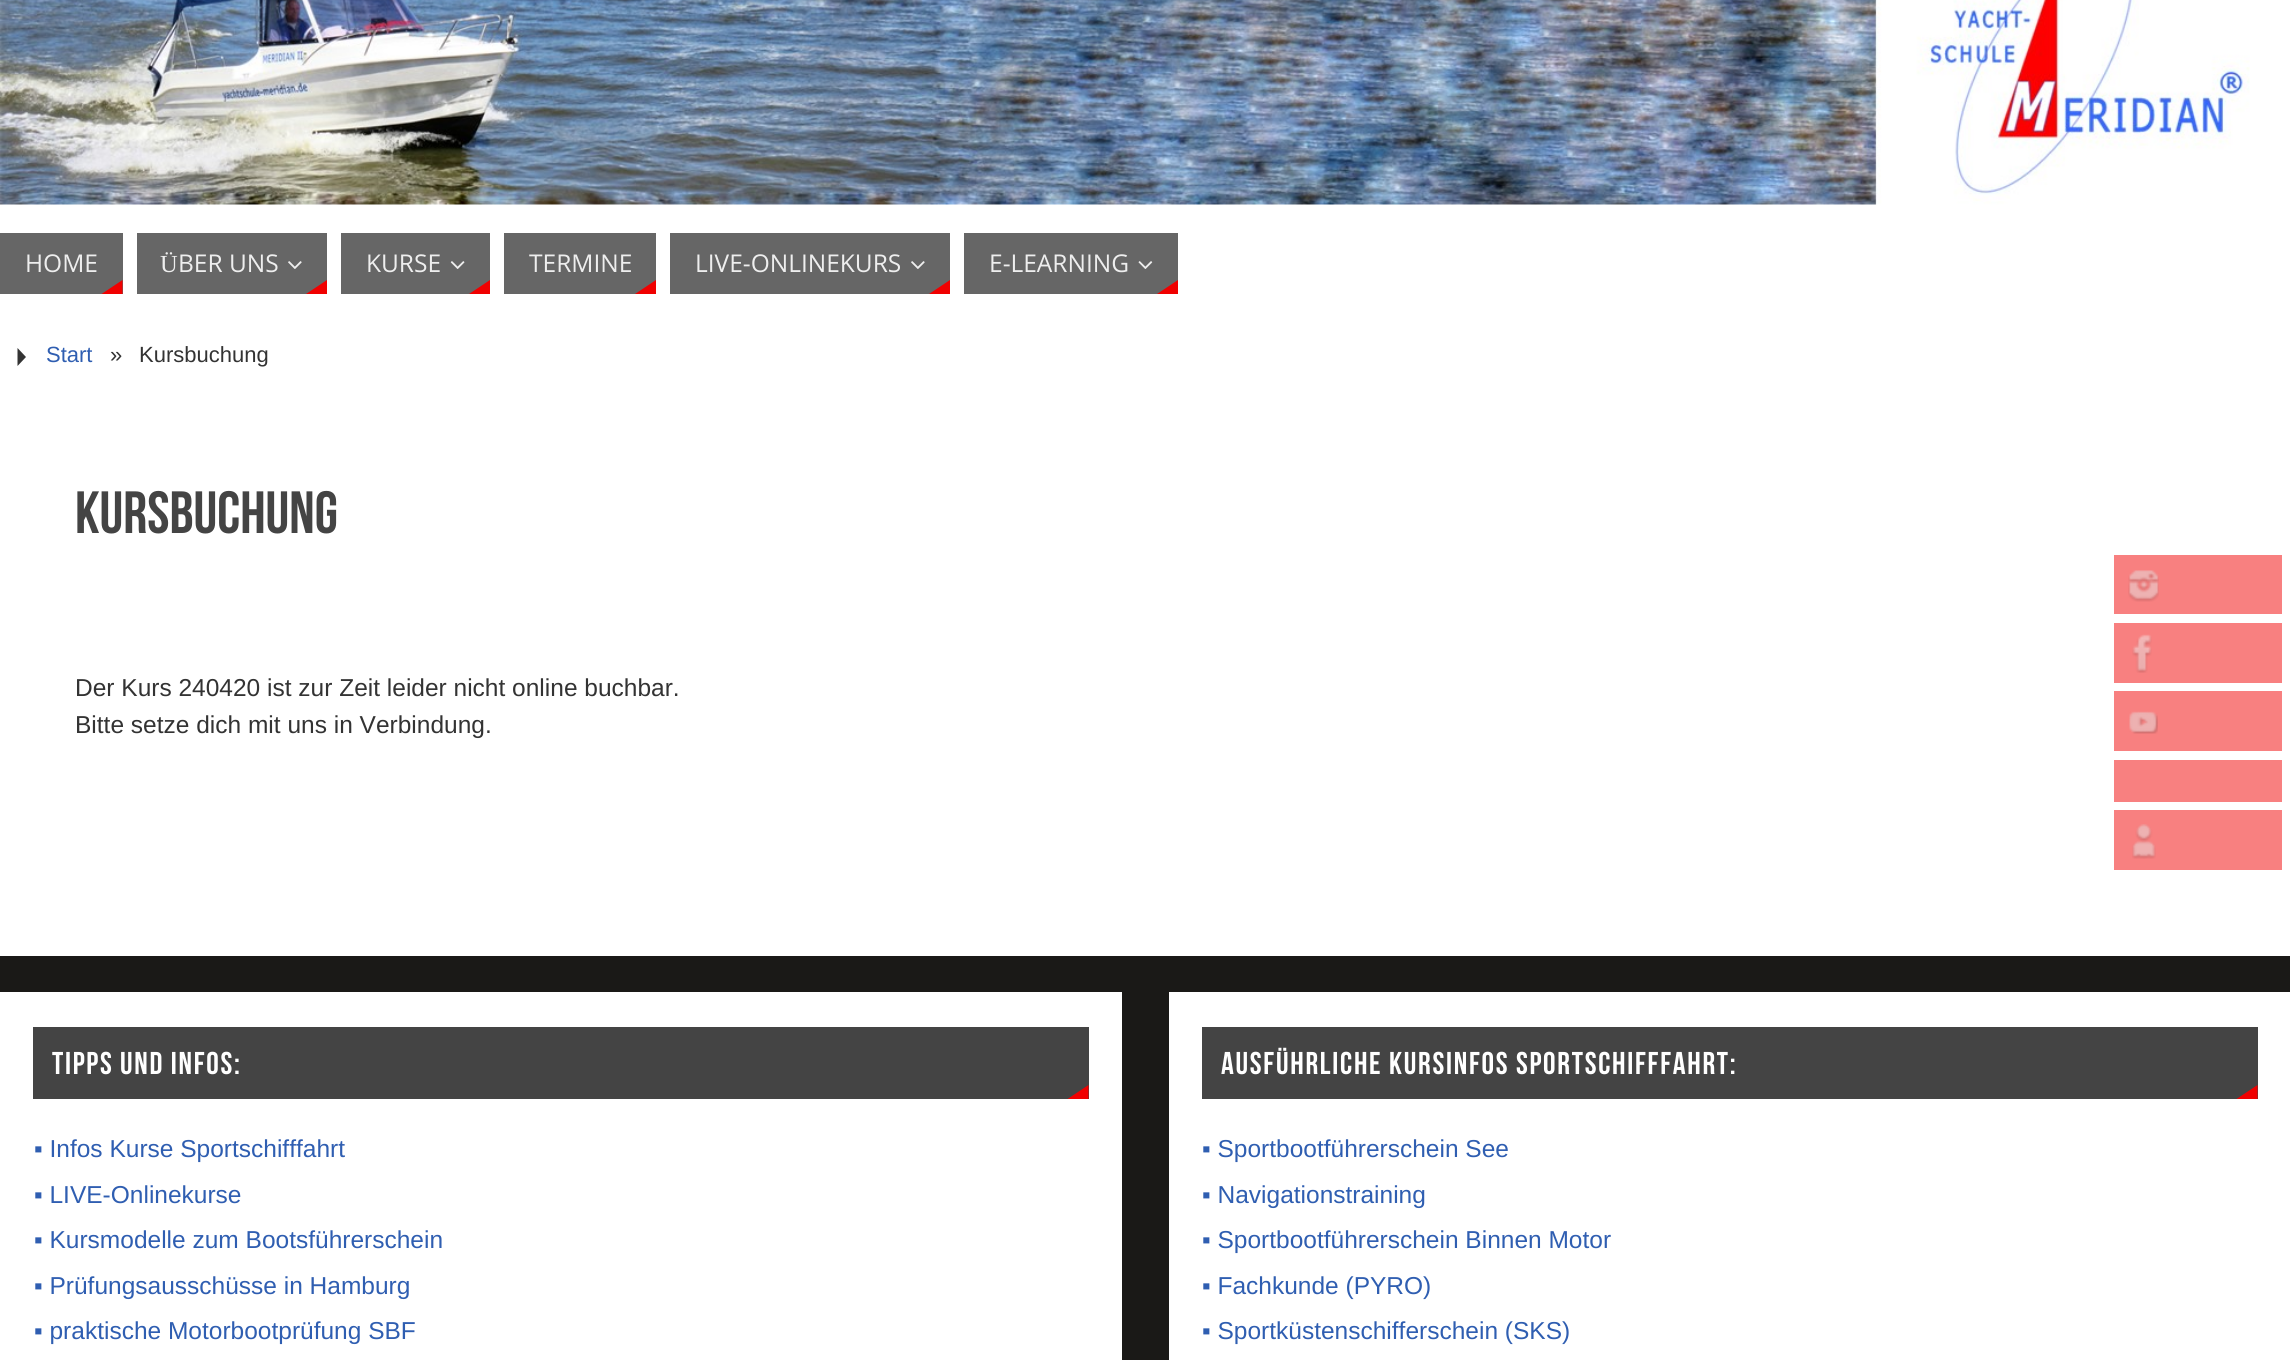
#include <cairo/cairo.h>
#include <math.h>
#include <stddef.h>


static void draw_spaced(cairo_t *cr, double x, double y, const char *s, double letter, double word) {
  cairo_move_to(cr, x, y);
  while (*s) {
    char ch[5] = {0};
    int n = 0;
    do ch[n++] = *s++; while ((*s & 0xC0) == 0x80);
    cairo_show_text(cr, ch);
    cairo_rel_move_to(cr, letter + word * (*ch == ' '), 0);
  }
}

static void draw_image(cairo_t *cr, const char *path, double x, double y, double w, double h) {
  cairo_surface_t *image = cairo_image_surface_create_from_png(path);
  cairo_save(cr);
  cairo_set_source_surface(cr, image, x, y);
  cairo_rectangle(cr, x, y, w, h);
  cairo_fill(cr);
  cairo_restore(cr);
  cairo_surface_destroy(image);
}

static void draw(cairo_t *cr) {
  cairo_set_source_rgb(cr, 1, 1, 1);
  cairo_paint(cr);
  draw_image(cr, "images/1.png", 0, 0, 2250, 205);
  cairo_set_source_rgb(cr, 102 / 255.0, 102 / 255.0, 102 / 255.0);
  cairo_rectangle(cr, 0, 233, 123, 61);
  cairo_fill(cr);
  cairo_set_source_rgb(cr, 240 / 255.0, 0, 0);
  cairo_new_path(cr);
  cairo_move_to(cr, 122.5, 294);
  cairo_line_to(cr, 101.5, 294);
  cairo_line_to(cr, 122.5, 280);
  cairo_close_path(cr);
  cairo_fill(cr);
  cairo_set_source_rgb(cr, 102 / 255.0, 102 / 255.0, 102 / 255.0);
  cairo_rectangle(cr, 137, 233, 190, 61);
  cairo_fill(cr);
  draw_image(cr, "images/2.png", 288, 261, 14, 8);
  cairo_set_source_rgb(cr, 240 / 255.0, 0, 0);
  cairo_new_path(cr);
  cairo_move_to(cr, 327, 294);
  cairo_line_to(cr, 306, 294);
  cairo_line_to(cr, 327, 280);
  cairo_close_path(cr);
  cairo_fill(cr);
  cairo_set_source_rgb(cr, 102 / 255.0, 102 / 255.0, 102 / 255.0);
  cairo_rectangle(cr, 341, 233, 149, 61);
  cairo_fill(cr);
  draw_image(cr, "images/3.png", 450, 261, 15, 8);
  cairo_set_source_rgb(cr, 240 / 255.0, 0, 0);
  cairo_new_path(cr);
  cairo_move_to(cr, 490, 294);
  cairo_line_to(cr, 469, 294);
  cairo_line_to(cr, 490, 280);
  cairo_close_path(cr);
  cairo_fill(cr);
  cairo_set_source_rgb(cr, 102 / 255.0, 102 / 255.0, 102 / 255.0);
  cairo_rectangle(cr, 504, 233, 152, 61);
  cairo_fill(cr);
  cairo_set_source_rgb(cr, 240 / 255.0, 0, 0);
  cairo_new_path(cr);
  cairo_move_to(cr, 656, 294);
  cairo_line_to(cr, 635, 294);
  cairo_line_to(cr, 656, 280);
  cairo_close_path(cr);
  cairo_fill(cr);
  cairo_set_source_rgb(cr, 102 / 255.0, 102 / 255.0, 102 / 255.0);
  cairo_rectangle(cr, 670, 233, 280, 61);
  cairo_fill(cr);
  draw_image(cr, "images/2.png", 911, 261, 14, 8);
  cairo_set_source_rgb(cr, 240 / 255.0, 0, 0);
  cairo_new_path(cr);
  cairo_move_to(cr, 950, 294);
  cairo_line_to(cr, 929, 294);
  cairo_line_to(cr, 950, 280);
  cairo_close_path(cr);
  cairo_fill(cr);
  cairo_set_source_rgb(cr, 102 / 255.0, 102 / 255.0, 102 / 255.0);
  cairo_rectangle(cr, 964, 233, 214, 61);
  cairo_fill(cr);
  draw_image(cr, "images/4.png", 1138, 261, 15, 8);
  cairo_set_source_rgb(cr, 240 / 255.0, 0, 0);
  cairo_new_path(cr);
  cairo_move_to(cr, 1178, 294);
  cairo_line_to(cr, 1157, 294);
  cairo_line_to(cr, 1178, 280);
  cairo_close_path(cr);
  cairo_fill(cr);
  cairo_set_source_rgb(cr, 51 / 255.0, 51 / 255.0, 51 / 255.0);
  cairo_new_path(cr);
  cairo_move_to(cr, 17.5, 366);
  cairo_line_to(cr, 17.5, 348);
  cairo_line_to(cr, 26, 357);
  cairo_close_path(cr);
  cairo_fill(cr);
  cairo_set_source_rgb(cr, 248 / 255.0, 128 / 255.0, 128 / 255.0);
  cairo_rectangle(cr, 2114, 555, 168, 59);
  cairo_fill(cr);
  draw_image(cr, "images/5.png", 2128, 570, 31, 32);
  cairo_rectangle(cr, 2114, 623, 168, 60);
  cairo_fill(cr);
  draw_image(cr, "images/6.png", 2132, 634, 20, 39);
  cairo_rectangle(cr, 2114, 691, 168, 60);
  cairo_fill(cr);
  draw_image(cr, "images/7.png", 2129, 711, 29, 23);
  cairo_rectangle(cr, 2114, 760, 168, 42);
  cairo_fill(cr);
  cairo_rectangle(cr, 2114, 810, 168, 60);
  cairo_fill(cr);
  draw_image(cr, "images/8.png", 2132, 824, 24, 35);
  cairo_set_source_rgb(cr, 26 / 255.0, 25 / 255.0, 23 / 255.0);
  cairo_rectangle(cr, 0, 956, 2290, 404);
  cairo_fill(cr);
  cairo_set_source_rgb(cr, 1, 1, 1);
  cairo_rectangle(cr, 0, 992, 1122, 368);
  cairo_fill(cr);
  cairo_set_source_rgb(cr, 68 / 255.0, 68 / 255.0, 68 / 255.0);
  cairo_rectangle(cr, 33, 1027, 1056, 72);
  cairo_fill(cr);
  cairo_set_source_rgb(cr, 240 / 255.0, 0, 0);
  cairo_new_path(cr);
  cairo_move_to(cr, 1088.5, 1099);
  cairo_line_to(cr, 1067.5, 1099);
  cairo_line_to(cr, 1088.5, 1085);
  cairo_close_path(cr);
  cairo_fill(cr);
  cairo_set_source_rgb(cr, 1, 1, 1);
  cairo_rectangle(cr, 1169, 992, 1121, 368);
  cairo_fill(cr);
  cairo_set_source_rgb(cr, 68 / 255.0, 68 / 255.0, 68 / 255.0);
  cairo_rectangle(cr, 1202, 1027, 1056, 72);
  cairo_fill(cr);
  cairo_set_source_rgb(cr, 240 / 255.0, 0, 0);
  cairo_new_path(cr);
  cairo_move_to(cr, 2257.5, 1099);
  cairo_line_to(cr, 2236.5, 1099);
  cairo_line_to(cr, 2257.5, 1085);
  cairo_close_path(cr);
  cairo_fill(cr);
  cairo_select_font_face(cr, "Open Sans", CAIRO_FONT_SLANT_NORMAL, CAIRO_FONT_WEIGHT_NORMAL);
  cairo_set_font_size(cr, 24.5);
  cairo_set_source_rgb(cr, 238 / 255.0, 238 / 255.0, 238 / 255.0);
  cairo_move_to(cr, 25, 272);
  cairo_show_text(cr, "HOME");
  cairo_select_font_face(cr, "Liberation Serif", CAIRO_FONT_SLANT_NORMAL, CAIRO_FONT_WEIGHT_NORMAL);
  cairo_move_to(cr, 160, 272);
  cairo_show_text(cr, "Ü");
  cairo_select_font_face(cr, "Open Sans", CAIRO_FONT_SLANT_NORMAL, CAIRO_FONT_WEIGHT_NORMAL);
  cairo_move_to(cr, 178, 272);
  cairo_show_text(cr, "BER UNS");
  cairo_move_to(cr, 366, 272);
  cairo_show_text(cr, "KURSE");
  cairo_move_to(cr, 529, 272);
  cairo_show_text(cr, "TERMINE");
  cairo_move_to(cr, 695, 272);
  cairo_show_text(cr, "LIVE-ONLINEKURS");
  cairo_move_to(cr, 989, 272);
  cairo_show_text(cr, "E-LEARNING");
  cairo_select_font_face(cr, "Liberation Sans", CAIRO_FONT_SLANT_NORMAL, CAIRO_FONT_WEIGHT_NORMAL);
  cairo_set_font_size(cr, 22);
  cairo_set_source_rgb(cr, 47 / 255.0, 94 / 255.0, 177 / 255.0);
  cairo_move_to(cr, 46, 362);
  cairo_show_text(cr, "Start");
  cairo_set_source_rgb(cr, 51 / 255.0, 51 / 255.0, 51 / 255.0);
  cairo_move_to(cr, 110, 362);
  cairo_show_text(cr, "»");
  cairo_move_to(cr, 139, 362);
  cairo_show_text(cr, "Kursbuchung");
  cairo_select_font_face(cr, "Bebas Neue", CAIRO_FONT_SLANT_NORMAL, CAIRO_FONT_WEIGHT_NORMAL);
  cairo_set_font_size(cr, 59.5);
  cairo_set_source_rgb(cr, 68 / 255.0, 68 / 255.0, 68 / 255.0);
  cairo_move_to(cr, 75, 533);
  cairo_show_text(cr, "Kursbuchung");
  cairo_select_font_face(cr, "Liberation Sans", CAIRO_FONT_SLANT_NORMAL, CAIRO_FONT_WEIGHT_NORMAL);
  cairo_set_font_size(cr, 24.5);
  cairo_set_source_rgb(cr, 51 / 255.0, 51 / 255.0, 51 / 255.0);
  cairo_move_to(cr, 75, 696);
  cairo_show_text(cr, "Der Kurs 240420 ist zur Zeit leider nicht online buchbar.");
  cairo_move_to(cr, 75, 733);
  cairo_show_text(cr, "Bitte setze dich mit uns in Verbindung.");
  cairo_select_font_face(cr, "Bebas Neue", CAIRO_FONT_SLANT_NORMAL, CAIRO_FONT_WEIGHT_NORMAL);
  cairo_set_font_size(cr, 31.5);
  cairo_set_source_rgb(cr, 1, 1, 1);
  draw_spaced(cr, 52, 1074, "TIPPS UND INFOS:", 1.75, 0);
  cairo_select_font_face(cr, "Liberation Sans", CAIRO_FONT_SLANT_NORMAL, CAIRO_FONT_WEIGHT_NORMAL);
  cairo_set_font_size(cr, 24.5);
  cairo_set_source_rgb(cr, 47 / 255.0, 94 / 255.0, 177 / 255.0);
  cairo_move_to(cr, 34, 1157);
  cairo_show_text(cr, "▪ Infos Kurse Sportschifffahrt");
  cairo_move_to(cr, 34, 1203);
  cairo_show_text(cr, "▪ LIVE-Onlinekurse");
  cairo_move_to(cr, 34, 1248);
  cairo_show_text(cr, "▪ Kursmodelle zum Bootsführerschein");
  cairo_move_to(cr, 34, 1294);
  cairo_show_text(cr, "▪ Prüfungsausschüsse in Hamburg");
  cairo_move_to(cr, 34, 1339);
  cairo_show_text(cr, "▪ praktische Motorbootprüfung SBF");
  cairo_select_font_face(cr, "Bebas Neue", CAIRO_FONT_SLANT_NORMAL, CAIRO_FONT_WEIGHT_NORMAL);
  cairo_set_font_size(cr, 31.5);
  cairo_set_source_rgb(cr, 1, 1, 1);
  draw_spaced(cr, 1221, 1074, "AUSFÜHRLICHE KURSINFOS SPORTSCHIFFFAHRT:", 1.75, 0);
  cairo_select_font_face(cr, "Liberation Sans", CAIRO_FONT_SLANT_NORMAL, CAIRO_FONT_WEIGHT_NORMAL);
  cairo_set_font_size(cr, 24.5);
  cairo_set_source_rgb(cr, 47 / 255.0, 94 / 255.0, 177 / 255.0);
  cairo_move_to(cr, 1202, 1157);
  cairo_show_text(cr, "▪ Sportbootführerschein See");
  cairo_move_to(cr, 1202, 1203);
  cairo_show_text(cr, "▪ Navigationstraining");
  cairo_move_to(cr, 1202, 1248);
  cairo_show_text(cr, "▪ Sportbootführerschein Binnen Motor");
  cairo_move_to(cr, 1202, 1294);
  cairo_show_text(cr, "▪ Fachkunde (PYRO)");
  cairo_move_to(cr, 1202, 1339);
  cairo_show_text(cr, "▪ Sportküstenschifferschein (SKS)");
}

int main(void) {
  cairo_surface_t *surface = cairo_image_surface_create(CAIRO_FORMAT_RGB24, 2290, 1360);
  cairo_t *cr = cairo_create(surface);
  cairo_font_options_t *options = cairo_font_options_create();
  cairo_font_options_set_hint_metrics(options, CAIRO_HINT_METRICS_OFF);
  cairo_font_options_set_hint_style(options, CAIRO_HINT_STYLE_NONE);
  cairo_set_font_options(cr, options);
  cairo_set_miter_limit(cr, 4);
  draw(cr);
  cairo_surface_write_to_png(surface, "out.png");
  cairo_font_options_destroy(options);
  cairo_destroy(cr);
  cairo_surface_destroy(surface);
  return 0;
}
